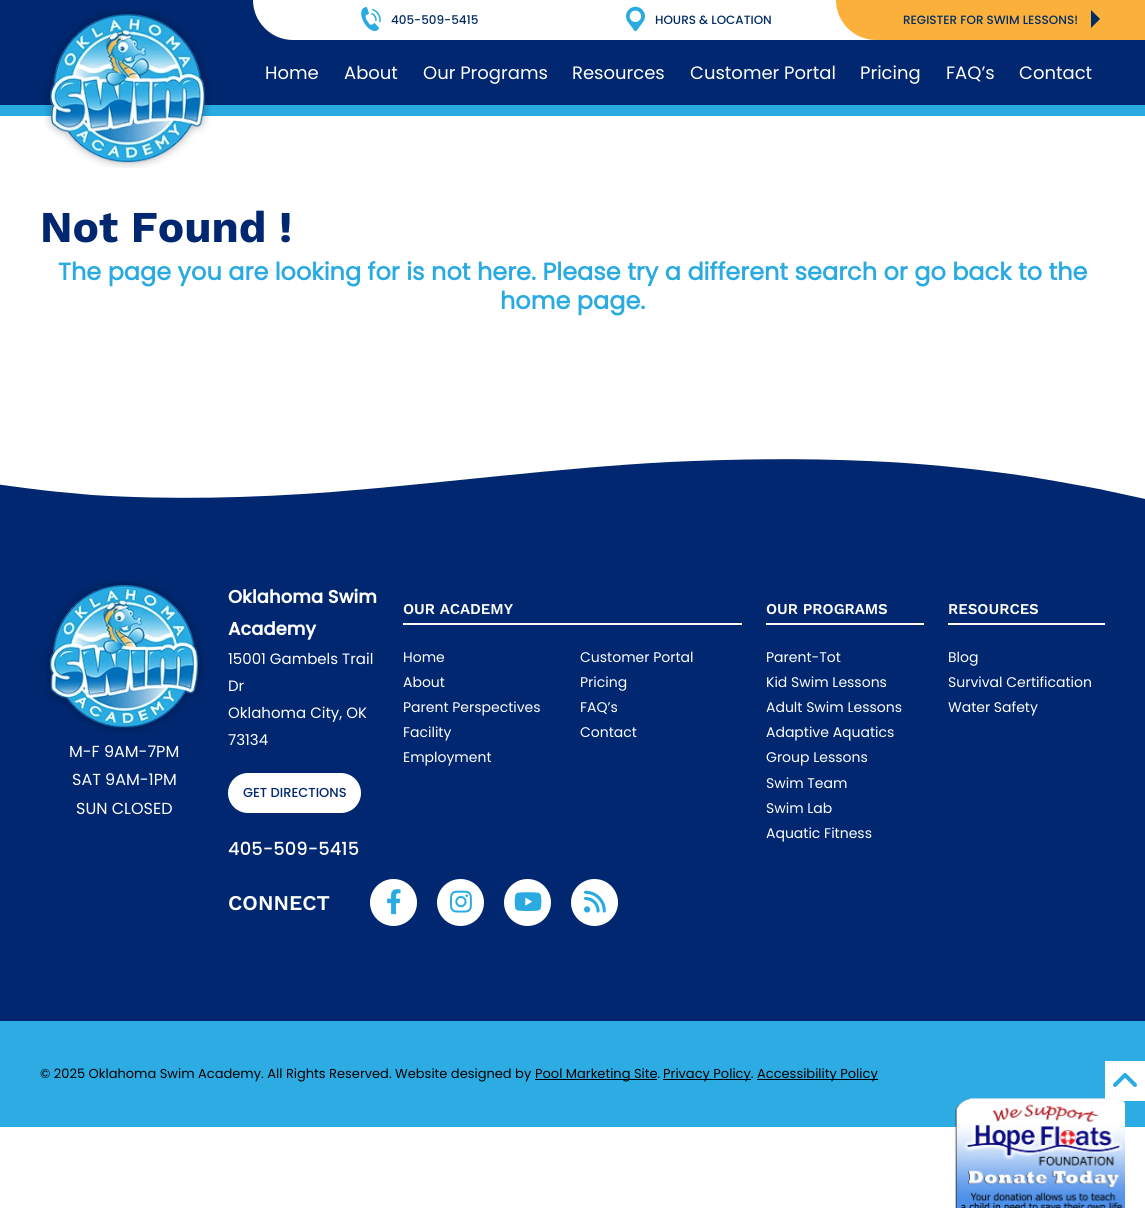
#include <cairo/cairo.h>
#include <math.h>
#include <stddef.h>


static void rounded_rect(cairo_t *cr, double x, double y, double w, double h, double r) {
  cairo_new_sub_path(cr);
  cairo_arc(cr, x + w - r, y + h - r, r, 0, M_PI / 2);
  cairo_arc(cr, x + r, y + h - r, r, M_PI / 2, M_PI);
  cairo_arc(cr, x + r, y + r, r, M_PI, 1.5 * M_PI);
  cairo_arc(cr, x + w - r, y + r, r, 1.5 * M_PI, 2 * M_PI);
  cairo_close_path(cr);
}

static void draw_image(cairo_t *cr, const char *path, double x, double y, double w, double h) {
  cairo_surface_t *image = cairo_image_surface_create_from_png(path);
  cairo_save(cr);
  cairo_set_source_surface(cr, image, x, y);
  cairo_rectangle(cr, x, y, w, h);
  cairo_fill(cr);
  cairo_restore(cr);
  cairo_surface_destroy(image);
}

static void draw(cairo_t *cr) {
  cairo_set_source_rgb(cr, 1, 1, 1);
  cairo_paint(cr);
  cairo_set_source_rgb(cr, 0, 39 / 255.0, 111 / 255.0);
  cairo_rectangle(cr, 0, 0, 1145, 105);
  cairo_fill(cr);
  cairo_set_source_rgb(cr, 41 / 255.0, 171 / 255.0, 226 / 255.0);
  cairo_rectangle(cr, 0, 105, 1145, 11);
  cairo_fill(cr);
  draw_image(cr, "images/1.png", 44, 10, 168, 158);
  cairo_set_source_rgb(cr, 1, 1, 1);
  cairo_rectangle(cr, 557, 0, 319, 40);
  cairo_fill(cr);
  cairo_new_path(cr);
  cairo_move_to(cr, 253, 0);
  cairo_line_to(cr, 557, 0);
  cairo_line_to(cr, 557, 40);
  cairo_line_to(cr, 293, 40);
  cairo_curve_to(cr, 271, 40, 253, 22, 253, 0);
  cairo_close_path(cr);
  cairo_fill(cr);
  draw_image(cr, "images/2.png", 361, 7, 20, 24);
  draw_image(cr, "images/3.png", 626, 6, 19, 26);
  cairo_set_source_rgb(cr, 251 / 255.0, 176 / 255.0, 59 / 255.0);
  cairo_new_path(cr);
  cairo_move_to(cr, 836, 0);
  cairo_line_to(cr, 1145, 0);
  cairo_line_to(cr, 1145, 40);
  cairo_line_to(cr, 876, 40);
  cairo_curve_to(cr, 854, 40, 836, 22, 836, 0);
  cairo_close_path(cr);
  cairo_fill(cr);
  cairo_set_source_rgb(cr, 0, 44 / 255.0, 99 / 255.0);
  cairo_new_path(cr);
  cairo_move_to(cr, 1091, 19);
  cairo_line_to(cr, 1091, 10);
  cairo_line_to(cr, 1100, 19);
  cairo_line_to(cr, 1091, 28);
  cairo_close_path(cr);
  cairo_fill(cr);
  cairo_set_source_rgb(cr, 0, 39 / 255.0, 111 / 255.0);
  cairo_new_path(cr);
  cairo_move_to(cr, -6, 517);
  cairo_line_to(cr, -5, 484);
  cairo_line_to(cr, 25, 488);
  cairo_curve_to(cr, 47, 491, 69, 493, 92, 495);
  cairo_curve_to(cr, 172, 500, 252, 498, 332, 492);
  cairo_curve_to(cr, 445, 483, 556, 468, 669, 462);
  cairo_curve_to(cr, 735, 459, 801, 458, 868, 461);
  cairo_curve_to(cr, 918, 463, 968, 468, 1018, 475);
  cairo_curve_to(cr, 1045, 479, 1072, 484, 1099, 489);
  cairo_line_to(cr, 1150, 500);
  cairo_line_to(cr, 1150, 550);
  cairo_line_to(cr, -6, 550);
  cairo_close_path(cr);
  cairo_fill(cr);
  cairo_rectangle(cr, 0, 550, 1145, 471);
  cairo_fill(cr);
  draw_image(cr, "images/4.png", 45, 581, 159, 152);
  cairo_set_source_rgb(cr, 1, 1, 1);
  rounded_rect(cr, 228, 773, 133, 40, 20);
  cairo_fill(cr);
  cairo_arc(cr, 393.5, 902.5, 23.5, 0, 2 * M_PI);
  cairo_fill(cr);
  draw_image(cr, "images/5.png", 387, 889, 14, 26);
  cairo_arc(cr, 460.5, 902.5, 23.5, 0, 2 * M_PI);
  cairo_fill(cr);
  draw_image(cr, "images/6.png", 450, 890, 22, 23);
  cairo_arc(cr, 527.5, 902.5, 23.5, 0, 2 * M_PI);
  cairo_fill(cr);
  draw_image(cr, "images/7.png", 514, 892, 28, 19);
  cairo_arc(cr, 594.5, 902.5, 23.5, 0, 2 * M_PI);
  cairo_fill(cr);
  draw_image(cr, "images/8.png", 584, 890, 22, 23);
  cairo_rectangle(cr, 403, 623, 339, 2);
  cairo_fill(cr);
  cairo_rectangle(cr, 766, 623, 158, 2);
  cairo_fill(cr);
  cairo_rectangle(cr, 948, 623, 157, 2);
  cairo_fill(cr);
  cairo_set_source_rgb(cr, 44 / 255.0, 172 / 255.0, 226 / 255.0);
  cairo_rectangle(cr, 0, 1021, 1145, 106);
  cairo_fill(cr);
  cairo_set_source_rgb(cr, 0, 0, 0);
  cairo_rectangle(cr, 535, 1079, 122, 1);
  cairo_fill(cr);
  cairo_rectangle(cr, 663, 1079, 88, 1);
  cairo_fill(cr);
  cairo_rectangle(cr, 757, 1079, 121, 1);
  cairo_fill(cr);
  cairo_set_source_rgb(cr, 1, 1, 1);
  cairo_rectangle(cr, 1105, 1061, 40, 40);
  cairo_fill(cr);
  draw_image(cr, "images/9.png", 1113, 1073, 24, 14);
  draw_image(cr, "images/10.png", 955, 1098, 170, 110);
  cairo_select_font_face(cr, "Poppins Medium", CAIRO_FONT_SLANT_NORMAL, CAIRO_FONT_WEIGHT_NORMAL);
  cairo_set_font_size(cr, 12);
  cairo_set_source_rgb(cr, 0, 44 / 255.0, 99 / 255.0);
  cairo_move_to(cr, 391, 24);
  cairo_show_text(cr, "405-509-5415");
  cairo_move_to(cr, 655, 24);
  cairo_show_text(cr, "HOURS & LOCATION");
  cairo_move_to(cr, 903, 24);
  cairo_show_text(cr, "REGISTER FOR SWIM LESSONS!");
  cairo_select_font_face(cr, "Poppins", CAIRO_FONT_SLANT_NORMAL, CAIRO_FONT_WEIGHT_NORMAL);
  cairo_set_font_size(cr, 18);
  cairo_set_source_rgb(cr, 1, 1, 1);
  cairo_move_to(cr, 265, 79);
  cairo_show_text(cr, "Home");
  cairo_move_to(cr, 344, 79);
  cairo_show_text(cr, "About");
  cairo_move_to(cr, 423, 79);
  cairo_show_text(cr, "Our Programs");
  cairo_move_to(cr, 572, 79);
  cairo_show_text(cr, "Resources");
  cairo_move_to(cr, 690, 79);
  cairo_show_text(cr, "Customer Portal");
  cairo_move_to(cr, 860, 79);
  cairo_show_text(cr, "Pricing");
  cairo_move_to(cr, 946, 79);
  cairo_show_text(cr, "FAQ’s");
  cairo_move_to(cr, 1019, 79);
  cairo_show_text(cr, "Contact");
  cairo_select_font_face(cr, "Work Sans", CAIRO_FONT_SLANT_NORMAL, CAIRO_FONT_WEIGHT_BOLD);
  cairo_set_font_size(cr, 44);
  cairo_set_source_rgb(cr, 0, 39 / 255.0, 111 / 255.0);
  cairo_move_to(cr, 40, 242);
  cairo_show_text(cr, "Not Found !");
  cairo_select_font_face(cr, "Poppins", CAIRO_FONT_SLANT_NORMAL, CAIRO_FONT_WEIGHT_BOLD);
  cairo_set_font_size(cr, 24);
  cairo_set_source_rgb(cr, 41 / 255.0, 171 / 255.0, 226 / 255.0);
  cairo_move_to(cr, 58, 280);
  cairo_show_text(cr, "The page you are looking for is not here. Please try a different search or go back to the");
  cairo_move_to(cr, 500, 309);
  cairo_show_text(cr, "home page.");
  cairo_select_font_face(cr, "Poppins", CAIRO_FONT_SLANT_NORMAL, CAIRO_FONT_WEIGHT_NORMAL);
  cairo_set_font_size(cr, 16);
  cairo_set_source_rgb(cr, 1, 1, 1);
  cairo_move_to(cr, 69, 757);
  cairo_show_text(cr, "M-F 9AM-7PM");
  cairo_move_to(cr, 72, 785);
  cairo_show_text(cr, "SAT 9AM-1PM");
  cairo_move_to(cr, 76, 814);
  cairo_show_text(cr, "SUN CLOSED");
  cairo_select_font_face(cr, "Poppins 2", CAIRO_FONT_SLANT_NORMAL, CAIRO_FONT_WEIGHT_BOLD);
  cairo_set_font_size(cr, 18);
  cairo_move_to(cr, 228, 603);
  cairo_show_text(cr, "Oklahoma Swim");
  cairo_move_to(cr, 228, 635);
  cairo_show_text(cr, "Academy");
  cairo_select_font_face(cr, "Poppins", CAIRO_FONT_SLANT_NORMAL, CAIRO_FONT_WEIGHT_NORMAL);
  cairo_set_font_size(cr, 15);
  cairo_move_to(cr, 228, 664);
  cairo_show_text(cr, "15001 Gambels Trail");
  cairo_move_to(cr, 228, 691);
  cairo_show_text(cr, "Dr");
  cairo_move_to(cr, 228, 718);
  cairo_show_text(cr, "Oklahoma City, OK");
  cairo_move_to(cr, 228, 745);
  cairo_show_text(cr, "73134");
  cairo_select_font_face(cr, "Poppins Medium", CAIRO_FONT_SLANT_NORMAL, CAIRO_FONT_WEIGHT_NORMAL);
  cairo_set_font_size(cr, 13);
  cairo_set_source_rgb(cr, 0, 39 / 255.0, 111 / 255.0);
  cairo_move_to(cr, 243, 797);
  cairo_show_text(cr, "GET DIRECTIONS");
  cairo_set_font_size(cr, 18);
  cairo_set_source_rgb(cr, 1, 1, 1);
  cairo_move_to(cr, 228, 855);
  cairo_show_text(cr, "405-509-5415");
  cairo_select_font_face(cr, "Work Sans SemiBold", CAIRO_FONT_SLANT_NORMAL, CAIRO_FONT_WEIGHT_NORMAL);
  cairo_set_font_size(cr, 21);
  cairo_move_to(cr, 228, 910);
  cairo_show_text(cr, "CONNECT");
  cairo_set_font_size(cr, 15);
  cairo_move_to(cr, 403, 614);
  cairo_show_text(cr, "OUR ACADEMY");
  cairo_select_font_face(cr, "Poppins", CAIRO_FONT_SLANT_NORMAL, CAIRO_FONT_WEIGHT_NORMAL);
  cairo_set_font_size(cr, 14);
  cairo_move_to(cr, 403, 662);
  cairo_show_text(cr, "Home");
  cairo_move_to(cr, 580, 662);
  cairo_show_text(cr, "Customer Portal");
  cairo_move_to(cr, 403, 687);
  cairo_show_text(cr, "About");
  cairo_move_to(cr, 580, 687);
  cairo_show_text(cr, "Pricing");
  cairo_move_to(cr, 403, 712);
  cairo_show_text(cr, "Parent Perspectives");
  cairo_move_to(cr, 580, 712);
  cairo_show_text(cr, "FAQ’s");
  cairo_move_to(cr, 403, 737);
  cairo_show_text(cr, "Facility");
  cairo_move_to(cr, 580, 737);
  cairo_show_text(cr, "Contact");
  cairo_move_to(cr, 403, 762);
  cairo_show_text(cr, "Employment");
  cairo_select_font_face(cr, "Work Sans SemiBold", CAIRO_FONT_SLANT_NORMAL, CAIRO_FONT_WEIGHT_NORMAL);
  cairo_set_font_size(cr, 15);
  cairo_move_to(cr, 766, 614);
  cairo_show_text(cr, "OUR PROGRAMS");
  cairo_select_font_face(cr, "Poppins", CAIRO_FONT_SLANT_NORMAL, CAIRO_FONT_WEIGHT_NORMAL);
  cairo_set_font_size(cr, 14);
  cairo_move_to(cr, 766, 662);
  cairo_show_text(cr, "Parent-Tot");
  cairo_move_to(cr, 766, 687);
  cairo_show_text(cr, "Kid Swim Lessons");
  cairo_move_to(cr, 766, 712);
  cairo_show_text(cr, "Adult Swim Lessons");
  cairo_move_to(cr, 766, 737);
  cairo_show_text(cr, "Adaptive Aquatics");
  cairo_move_to(cr, 766, 762);
  cairo_show_text(cr, "Group Lessons");
  cairo_move_to(cr, 766, 788);
  cairo_show_text(cr, "Swim Team");
  cairo_move_to(cr, 766, 813);
  cairo_show_text(cr, "Swim Lab");
  cairo_move_to(cr, 766, 838);
  cairo_show_text(cr, "Aquatic Fitness");
  cairo_select_font_face(cr, "Work Sans SemiBold", CAIRO_FONT_SLANT_NORMAL, CAIRO_FONT_WEIGHT_NORMAL);
  cairo_set_font_size(cr, 15);
  cairo_move_to(cr, 948, 614);
  cairo_show_text(cr, "RESOURCES");
  cairo_select_font_face(cr, "Poppins", CAIRO_FONT_SLANT_NORMAL, CAIRO_FONT_WEIGHT_NORMAL);
  cairo_set_font_size(cr, 14);
  cairo_move_to(cr, 948, 662);
  cairo_show_text(cr, "Blog");
  cairo_move_to(cr, 948, 687);
  cairo_show_text(cr, "Survival Certification");
  cairo_move_to(cr, 948, 712);
  cairo_show_text(cr, "Water Safety");
  cairo_set_font_size(cr, 13);
  cairo_set_source_rgb(cr, 0, 0, 0);
  cairo_move_to(cr, 40, 1078);
  cairo_show_text(cr, "© 2025 Oklahoma Swim Academy. All Rights Reserved. Website designed by");
  cairo_move_to(cr, 535, 1078);
  cairo_show_text(cr, "Pool Marketing Site.");
  cairo_move_to(cr, 663, 1078);
  cairo_show_text(cr, "Privacy Policy.");
  cairo_move_to(cr, 757, 1078);
  cairo_show_text(cr, "Accessibility Policy");
}

int main(void) {
  cairo_surface_t *surface = cairo_image_surface_create(CAIRO_FORMAT_RGB24, 1145, 1208);
  cairo_t *cr = cairo_create(surface);
  cairo_font_options_t *options = cairo_font_options_create();
  cairo_font_options_set_hint_metrics(options, CAIRO_HINT_METRICS_OFF);
  cairo_font_options_set_hint_style(options, CAIRO_HINT_STYLE_NONE);
  cairo_set_font_options(cr, options);
  cairo_set_miter_limit(cr, 4);
  draw(cr);
  cairo_surface_write_to_png(surface, "out.png");
  cairo_font_options_destroy(options);
  cairo_destroy(cr);
  cairo_surface_destroy(surface);
  return 0;
}
